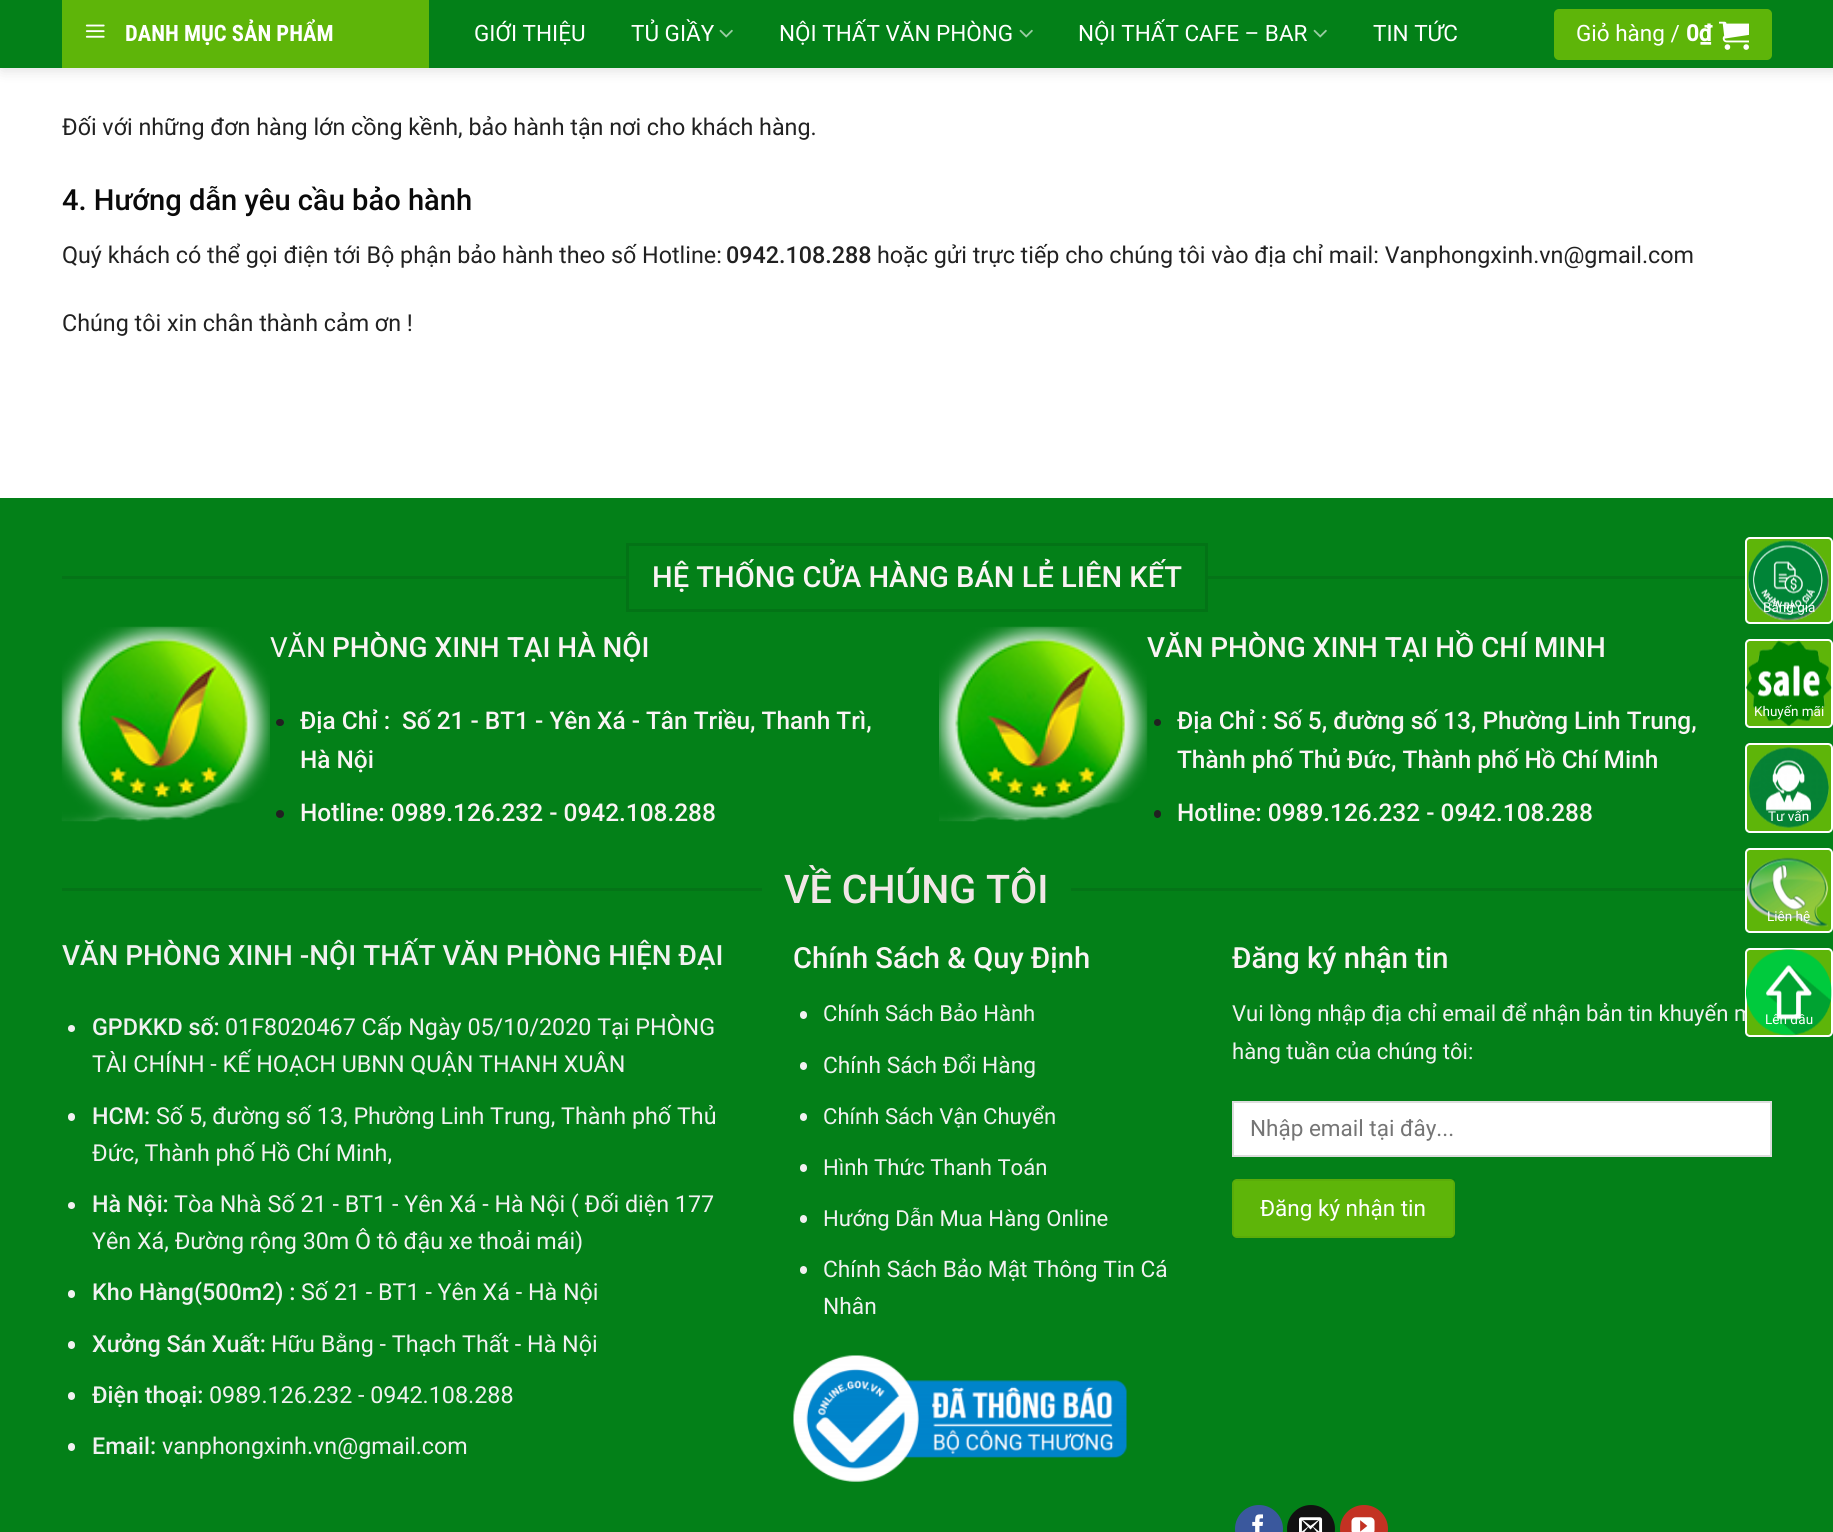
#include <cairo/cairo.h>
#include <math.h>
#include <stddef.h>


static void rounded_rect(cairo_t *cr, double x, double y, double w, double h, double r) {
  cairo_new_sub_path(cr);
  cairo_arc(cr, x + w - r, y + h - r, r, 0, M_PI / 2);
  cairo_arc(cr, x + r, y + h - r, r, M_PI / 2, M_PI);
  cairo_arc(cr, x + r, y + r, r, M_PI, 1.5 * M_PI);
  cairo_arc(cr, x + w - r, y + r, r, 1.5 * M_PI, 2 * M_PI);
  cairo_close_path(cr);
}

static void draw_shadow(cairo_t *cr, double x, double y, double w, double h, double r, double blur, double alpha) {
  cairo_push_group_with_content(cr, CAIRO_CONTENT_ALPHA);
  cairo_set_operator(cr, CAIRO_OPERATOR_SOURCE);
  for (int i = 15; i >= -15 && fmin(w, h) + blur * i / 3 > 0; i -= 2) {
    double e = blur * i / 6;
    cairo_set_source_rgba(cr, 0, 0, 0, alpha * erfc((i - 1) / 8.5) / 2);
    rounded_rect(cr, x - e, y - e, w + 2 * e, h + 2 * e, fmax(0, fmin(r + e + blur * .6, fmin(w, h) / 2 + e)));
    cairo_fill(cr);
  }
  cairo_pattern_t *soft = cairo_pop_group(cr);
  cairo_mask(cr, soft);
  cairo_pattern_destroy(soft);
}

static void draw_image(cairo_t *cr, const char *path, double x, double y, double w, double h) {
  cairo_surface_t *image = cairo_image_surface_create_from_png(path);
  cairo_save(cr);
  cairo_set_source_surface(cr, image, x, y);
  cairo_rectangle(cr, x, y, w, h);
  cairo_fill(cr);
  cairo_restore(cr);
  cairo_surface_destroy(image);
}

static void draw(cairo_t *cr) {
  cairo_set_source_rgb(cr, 1, 1, 1);
  cairo_paint(cr);
  cairo_set_source_rgb(cr, 0, 0, 0);
  draw_shadow(cr, 2, 2, 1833, 67, 0, 7.5, 0.15);
  cairo_set_source_rgb(cr, 3 / 255.0, 128 / 255.0, 24 / 255.0);
  cairo_rectangle(cr, 0, 0, 1833, 68);
  cairo_fill(cr);
  cairo_set_source_rgb(cr, 94 / 255.0, 181 / 255.0, 9 / 255.0);
  cairo_rectangle(cr, 62, 0, 367, 68);
  cairo_fill(cr);
  draw_image(cr, "images/1.png", 85, 24, 20, 14);
  draw_image(cr, "images/2.png", 719, 29, 14, 9);
  draw_image(cr, "images/2.png", 1019, 29, 14, 9);
  draw_image(cr, "images/2.png", 1313, 29, 14, 9);
  rounded_rect(cr, 1554, 9, 218, 51, 5);
  cairo_fill(cr);
  draw_image(cr, "images/3.png", 1719, 21, 30, 29);
  cairo_set_source_rgb(cr, 3 / 255.0, 128 / 255.0, 24 / 255.0);
  cairo_rectangle(cr, 0, 498, 1833, 1034);
  cairo_fill(cr);
  cairo_set_source_rgb(cr, 4 / 255.0, 116 / 255.0, 23 / 255.0);
  cairo_rectangle(cr, 62, 576, 564, 3);
  cairo_fill(cr);
  cairo_rectangle(cr, 627.5, 544.5, 579, 66);
  cairo_set_source_rgb(cr, 3 / 255.0, 115 / 255.0, 22 / 255.0);
  cairo_set_line_width(cr, 3);
  cairo_stroke(cr);
  cairo_set_source_rgb(cr, 4 / 255.0, 116 / 255.0, 23 / 255.0);
  cairo_rectangle(cr, 1208, 576, 537, 3);
  cairo_fill(cr);
  draw_image(cr, "images/4.png", 61, 626, 209, 196);
  cairo_set_source_rgb(cr, 33 / 255.0, 33 / 255.0, 33 / 255.0);
  rounded_rect(cr, 276, 719, 8, 7, 3.5);
  cairo_fill(cr);
  cairo_arc(cr, 280, 814, 4, 0, 2 * M_PI);
  cairo_fill(cr);
  draw_image(cr, "images/5.png", 939, 626, 209, 196);
  cairo_arc(cr, 1157.5, 722.5, 3.5, 0, 2 * M_PI);
  cairo_fill(cr);
  rounded_rect(cr, 1154, 810, 7, 8, 3.5);
  cairo_fill(cr);
  cairo_set_source_rgb(cr, 4 / 255.0, 116 / 255.0, 23 / 255.0);
  cairo_rectangle(cr, 62, 888, 700, 3);
  cairo_fill(cr);
  cairo_rectangle(cr, 1071, 888, 674, 3);
  cairo_fill(cr);
  cairo_set_source_rgb(cr, 241 / 255.0, 241 / 255.0, 241 / 255.0);
  cairo_arc(cr, 71.5, 1028.5, 3.5, 0, 2 * M_PI);
  cairo_fill(cr);
  rounded_rect(cr, 68, 1113, 7, 8, 3.5);
  cairo_fill(cr);
  cairo_arc(cr, 71.5, 1205.5, 3.5, 0, 2 * M_PI);
  cairo_fill(cr);
  rounded_rect(cr, 68, 1290, 7, 8, 3.5);
  cairo_fill(cr);
  rounded_rect(cr, 68, 1341, 7, 8, 3.5);
  cairo_fill(cr);
  rounded_rect(cr, 68, 1392, 7, 8, 3.5);
  cairo_fill(cr);
  rounded_rect(cr, 68, 1443, 7, 8, 3.5);
  cairo_fill(cr);
  rounded_rect(cr, 800, 1011, 7, 8, 3.5);
  cairo_fill(cr);
  rounded_rect(cr, 800, 1062, 7, 8, 3.5);
  cairo_fill(cr);
  rounded_rect(cr, 800, 1113, 7, 8, 3.5);
  cairo_fill(cr);
  rounded_rect(cr, 800, 1164, 7, 8, 3.5);
  cairo_fill(cr);
  rounded_rect(cr, 800, 1215, 7, 8, 3.5);
  cairo_fill(cr);
  rounded_rect(cr, 800, 1266, 7, 8, 3.5);
  cairo_fill(cr);
  draw_image(cr, "images/6.png", 793, 1355, 334, 127);
  cairo_set_source_rgb(cr, 1, 1, 1);
  cairo_rectangle(cr, 1233, 1102, 538, 54);
  cairo_fill_preserve(cr);
  cairo_set_source_rgb(cr, 221 / 255.0, 221 / 255.0, 221 / 255.0);
  cairo_set_line_width(cr, 2);
  cairo_stroke(cr);
  cairo_set_source_rgb(cr, 94 / 255.0, 181 / 255.0, 9 / 255.0);
  rounded_rect(cr, 1232, 1179, 223, 59, 5);
  cairo_fill(cr);
  cairo_rectangle(cr, 1233, 1180, 221, 57);
  cairo_set_source_rgba(cr, 0, 0, 0, 0.05);
  cairo_stroke(cr);
  cairo_set_source_rgb(cr, 58 / 255.0, 88 / 255.0, 157 / 255.0);
  cairo_arc(cr, 1259, 1529, 23, 0, 2 * M_PI);
  cairo_fill_preserve(cr);
  cairo_stroke(cr);
  draw_image(cr, "images/7.png", 1252, 1514, 11, 18);
  cairo_set_source_rgb(cr, 17 / 255.0, 17 / 255.0, 17 / 255.0);
  cairo_arc(cr, 1311, 1529, 23, 0, 2 * M_PI);
  cairo_fill_preserve(cr);
  cairo_stroke(cr);
  draw_image(cr, "images/8.png", 1299, 1517, 24, 15);
  cairo_set_source_rgb(cr, 195 / 255.0, 50 / 255.0, 35 / 255.0);
  cairo_arc(cr, 1364, 1529, 23, 0, 2 * M_PI);
  cairo_fill_preserve(cr);
  cairo_stroke(cr);
  draw_image(cr, "images/9.png", 1351, 1517, 24, 15);
  cairo_set_source_rgb(cr, 94 / 255.0, 181 / 255.0, 9 / 255.0);
  rounded_rect(cr, 1746, 538, 86, 85, 4);
  cairo_fill_preserve(cr);
  cairo_set_source_rgb(cr, 1, 1, 1);
  cairo_stroke(cr);
  draw_image(cr, "images/10.png", 1748, 540, 81, 81);
  cairo_set_source_rgb(cr, 94 / 255.0, 181 / 255.0, 9 / 255.0);
  rounded_rect(cr, 1746, 640, 86, 87, 4);
  cairo_fill_preserve(cr);
  cairo_set_source_rgb(cr, 1, 1, 1);
  cairo_stroke(cr);
  draw_image(cr, "images/11.png", 1746, 640, 86, 86);
  cairo_set_source_rgb(cr, 94 / 255.0, 181 / 255.0, 9 / 255.0);
  rounded_rect(cr, 1746, 744, 86, 88, 4);
  cairo_fill_preserve(cr);
  cairo_set_source_rgb(cr, 1, 1, 1);
  cairo_stroke(cr);
  draw_image(cr, "images/12.png", 1749, 747, 80, 81);
  cairo_set_source_rgb(cr, 94 / 255.0, 181 / 255.0, 9 / 255.0);
  rounded_rect(cr, 1746, 849, 86, 83, 4);
  cairo_fill_preserve(cr);
  cairo_set_source_rgb(cr, 1, 1, 1);
  cairo_stroke(cr);
  draw_image(cr, "images/13.png", 1746, 857, 83, 70);
  cairo_select_font_face(cr, "Roboto Condensed", CAIRO_FONT_SLANT_NORMAL, CAIRO_FONT_WEIGHT_BOLD);
  cairo_set_font_size(cr, 22.5);
  cairo_move_to(cr, 125, 41);
  cairo_show_text(cr, "DANH MỤC SẢN PHẨM");
  cairo_select_font_face(cr, "Roboto", CAIRO_FONT_SLANT_NORMAL, CAIRO_FONT_WEIGHT_NORMAL);
  cairo_move_to(cr, 474, 41);
  cairo_show_text(cr, "GIỚI THIỆU");
  cairo_move_to(cr, 631, 41);
  cairo_show_text(cr, "TỦ GIẦY");
  cairo_move_to(cr, 779, 41);
  cairo_show_text(cr, "NỘI THẤT VĂN PHÒNG");
  cairo_move_to(cr, 1078, 41);
  cairo_show_text(cr, "NỘI THẤT CAFE – BAR");
  cairo_move_to(cr, 1373, 41);
  cairo_show_text(cr, "TIN TỨC");
  cairo_move_to(cr, 1576, 41);
  cairo_show_text(cr, "Giỏ hàng /");
  cairo_select_font_face(cr, "Roboto", CAIRO_FONT_SLANT_NORMAL, CAIRO_FONT_WEIGHT_BOLD);
  cairo_move_to(cr, 1686, 41);
  cairo_show_text(cr, "0₫");
  cairo_select_font_face(cr, "Roboto", CAIRO_FONT_SLANT_NORMAL, CAIRO_FONT_WEIGHT_NORMAL);
  cairo_set_font_size(cr, 23.3);
  cairo_set_source_rgb(cr, 33 / 255.0, 33 / 255.0, 33 / 255.0);
  cairo_move_to(cr, 62, 135);
  cairo_show_text(cr, "Đối với những đơn hàng lớn cồng kềnh, bảo hành tận nơi cho khách hàng.");
  cairo_select_font_face(cr, "Roboto Medium", CAIRO_FONT_SLANT_NORMAL, CAIRO_FONT_WEIGHT_NORMAL);
  cairo_set_font_size(cr, 29.1);
  cairo_set_source_rgb(cr, 10 / 255.0, 10 / 255.0, 10 / 255.0);
  cairo_move_to(cr, 62, 210);
  cairo_show_text(cr, "4. Hướng dẫn yêu cầu bảo hành");
  cairo_select_font_face(cr, "Roboto", CAIRO_FONT_SLANT_NORMAL, CAIRO_FONT_WEIGHT_NORMAL);
  cairo_set_font_size(cr, 23.3);
  cairo_set_source_rgb(cr, 33 / 255.0, 33 / 255.0, 33 / 255.0);
  cairo_move_to(cr, 62, 263);
  cairo_show_text(cr, "Quý khách có thể gọi điện tới Bộ phận bảo hành theo số Hotline:");
  cairo_select_font_face(cr, "Roboto Medium", CAIRO_FONT_SLANT_NORMAL, CAIRO_FONT_WEIGHT_NORMAL);
  cairo_move_to(cr, 726, 263);
  cairo_show_text(cr, "0942.108.288");
  cairo_select_font_face(cr, "Roboto", CAIRO_FONT_SLANT_NORMAL, CAIRO_FONT_WEIGHT_NORMAL);
  cairo_move_to(cr, 877, 263);
  cairo_show_text(cr, "hoặc gửi trực tiếp cho chúng tôi vào địa chỉ mail: Vanphongxinh.vn@gmail.com");
  cairo_move_to(cr, 62, 331);
  cairo_show_text(cr, "Chúng tôi xin chân thành cảm ơn !");
  cairo_select_font_face(cr, "Roboto Medium", CAIRO_FONT_SLANT_NORMAL, CAIRO_FONT_WEIGHT_NORMAL);
  cairo_set_font_size(cr, 29.1);
  cairo_set_source_rgb(cr, 250 / 255.0, 244 / 255.0, 244 / 255.0);
  cairo_move_to(cr, 652, 587);
  cairo_show_text(cr, "HỆ THỐNG CỬA HÀNG BÁN LẺ LIÊN KẾT");
  cairo_select_font_face(cr, "Roboto", CAIRO_FONT_SLANT_NORMAL, CAIRO_FONT_WEIGHT_NORMAL);
  cairo_set_font_size(cr, 27.9);
  cairo_move_to(cr, 270, 657);
  cairo_show_text(cr, "VĂN");
  cairo_select_font_face(cr, "Roboto Medium", CAIRO_FONT_SLANT_NORMAL, CAIRO_FONT_WEIGHT_NORMAL);
  cairo_move_to(cr, 332, 657);
  cairo_show_text(cr, "PHÒNG XINH");
  cairo_move_to(cr, 507, 657);
  cairo_show_text(cr, "TẠI HÀ NỘI");
  cairo_set_font_size(cr, 24.4);
  cairo_move_to(cr, 300, 729);
  cairo_show_text(cr, "Địa Chỉ :");
  cairo_move_to(cr, 402, 729);
  cairo_show_text(cr, "Số 21 - BT1 - Yên Xá - Tân Triều, Thanh Trì,");
  cairo_move_to(cr, 300, 768);
  cairo_show_text(cr, "Hà Nội");
  cairo_move_to(cr, 300, 821);
  cairo_show_text(cr, "Hotline: 0989.126.232 - 0942.108.288");
  cairo_set_font_size(cr, 27.9);
  cairo_move_to(cr, 1147, 657);
  cairo_show_text(cr, "VĂN PHÒNG XINH TẠI HỒ CHÍ MINH");
  cairo_set_font_size(cr, 24.4);
  cairo_move_to(cr, 1177, 729);
  cairo_show_text(cr, "Địa Chỉ : Số 5, đường số 13, Phường Linh Trung,");
  cairo_move_to(cr, 1177, 768);
  cairo_show_text(cr, "Thành phố Thủ Đức, Thành phố Hồ Chí Minh");
  cairo_move_to(cr, 1177, 821);
  cairo_show_text(cr, "Hotline: 0989.126.232 - 0942.108.288");
  cairo_set_font_size(cr, 39.5);
  cairo_set_source_rgb(cr, 241 / 255.0, 230 / 255.0, 230 / 255.0);
  cairo_move_to(cr, 784, 903);
  cairo_show_text(cr, "VỀ CHÚNG TÔI");
  cairo_set_font_size(cr, 27.9);
  cairo_set_source_rgb(cr, 241 / 255.0, 241 / 255.0, 241 / 255.0);
  cairo_move_to(cr, 62, 965);
  cairo_show_text(cr, "VĂN PHÒNG XINH -NỘI THẤT VĂN PHÒNG HIỆN ĐẠI");
  cairo_set_font_size(cr, 23.3);
  cairo_move_to(cr, 92, 1035);
  cairo_show_text(cr, "GPDKKD số:");
  cairo_select_font_face(cr, "Roboto", CAIRO_FONT_SLANT_NORMAL, CAIRO_FONT_WEIGHT_NORMAL);
  cairo_move_to(cr, 225, 1035);
  cairo_show_text(cr, "01F8020467 Cấp Ngày 05/10/2020 Tại PHÒNG");
  cairo_move_to(cr, 92, 1072);
  cairo_show_text(cr, "TÀI CHÍNH - KẾ HOẠCH UBNN QUẬN THANH XUÂN");
  cairo_select_font_face(cr, "Roboto Medium", CAIRO_FONT_SLANT_NORMAL, CAIRO_FONT_WEIGHT_NORMAL);
  cairo_move_to(cr, 92, 1124);
  cairo_show_text(cr, "HCM:");
  cairo_select_font_face(cr, "Roboto", CAIRO_FONT_SLANT_NORMAL, CAIRO_FONT_WEIGHT_NORMAL);
  cairo_move_to(cr, 156, 1124);
  cairo_show_text(cr, "Số 5, đường số 13, Phường Linh Trung, Thành phố Thủ");
  cairo_move_to(cr, 92, 1161);
  cairo_show_text(cr, "Đức, Thành phố Hồ Chí Minh,");
  cairo_select_font_face(cr, "Roboto Medium", CAIRO_FONT_SLANT_NORMAL, CAIRO_FONT_WEIGHT_NORMAL);
  cairo_move_to(cr, 92, 1212);
  cairo_show_text(cr, "Hà Nội:");
  cairo_select_font_face(cr, "Roboto", CAIRO_FONT_SLANT_NORMAL, CAIRO_FONT_WEIGHT_NORMAL);
  cairo_move_to(cr, 174, 1212);
  cairo_show_text(cr, "Tòa Nhà Số 21 - BT1 - Yên Xá - Hà Nội ( Đối diện 177");
  cairo_move_to(cr, 92, 1249);
  cairo_show_text(cr, "Yên Xá, Đường rộng 30m Ô tô đậu xe thoải mái)");
  cairo_select_font_face(cr, "Roboto Medium", CAIRO_FONT_SLANT_NORMAL, CAIRO_FONT_WEIGHT_NORMAL);
  cairo_move_to(cr, 92, 1300);
  cairo_show_text(cr, "Kho Hàng(500m2) :");
  cairo_select_font_face(cr, "Roboto", CAIRO_FONT_SLANT_NORMAL, CAIRO_FONT_WEIGHT_NORMAL);
  cairo_move_to(cr, 301, 1300);
  cairo_show_text(cr, "Số 21 - BT1 - Yên Xá - Hà Nội");
  cairo_select_font_face(cr, "Roboto Medium", CAIRO_FONT_SLANT_NORMAL, CAIRO_FONT_WEIGHT_NORMAL);
  cairo_move_to(cr, 92, 1352);
  cairo_show_text(cr, "Xưởng Sán Xuất:");
  cairo_select_font_face(cr, "Roboto", CAIRO_FONT_SLANT_NORMAL, CAIRO_FONT_WEIGHT_NORMAL);
  cairo_move_to(cr, 271, 1352);
  cairo_show_text(cr, "Hữu Bằng - Thạch Thất - Hà Nội");
  cairo_select_font_face(cr, "Roboto Medium", CAIRO_FONT_SLANT_NORMAL, CAIRO_FONT_WEIGHT_NORMAL);
  cairo_move_to(cr, 92, 1403);
  cairo_show_text(cr, "Điện thoại:");
  cairo_select_font_face(cr, "Roboto", CAIRO_FONT_SLANT_NORMAL, CAIRO_FONT_WEIGHT_NORMAL);
  cairo_move_to(cr, 209, 1403);
  cairo_show_text(cr, "0989.126.232 - 0942.108.288");
  cairo_select_font_face(cr, "Roboto Medium", CAIRO_FONT_SLANT_NORMAL, CAIRO_FONT_WEIGHT_NORMAL);
  cairo_move_to(cr, 92, 1454);
  cairo_show_text(cr, "Email:");
  cairo_select_font_face(cr, "Roboto", CAIRO_FONT_SLANT_NORMAL, CAIRO_FONT_WEIGHT_NORMAL);
  cairo_move_to(cr, 162, 1454);
  cairo_show_text(cr, "vanphongxinh.vn@gmail.com");
  cairo_select_font_face(cr, "Roboto Medium", CAIRO_FONT_SLANT_NORMAL, CAIRO_FONT_WEIGHT_NORMAL);
  cairo_set_font_size(cr, 29.1);
  cairo_set_source_rgb(cr, 250 / 255.0, 244 / 255.0, 244 / 255.0);
  cairo_move_to(cr, 793, 968);
  cairo_show_text(cr, "Chính Sách & Quy Định");
  cairo_select_font_face(cr, "Roboto", CAIRO_FONT_SLANT_NORMAL, CAIRO_FONT_WEIGHT_NORMAL);
  cairo_set_font_size(cr, 22.1);
  cairo_set_source_rgb(cr, 241 / 255.0, 241 / 255.0, 241 / 255.0);
  cairo_move_to(cr, 823, 1021);
  cairo_show_text(cr, "Chính Sách Bảo Hành");
  cairo_set_font_size(cr, 22.75);
  cairo_move_to(cr, 823, 1073);
  cairo_show_text(cr, "Chính Sách Đổi Hàng");
  cairo_set_font_size(cr, 22.1);
  cairo_move_to(cr, 823, 1124);
  cairo_show_text(cr, "Chính Sách Vận Chuyển");
  cairo_move_to(cr, 823, 1175);
  cairo_show_text(cr, "Hình Thức Thanh Toán");
  cairo_move_to(cr, 823, 1226);
  cairo_show_text(cr, "Hướng Dẫn Mua Hàng Online");
  cairo_set_font_size(cr, 22.75);
  cairo_move_to(cr, 823, 1277);
  cairo_show_text(cr, "Chính Sách Bảo Mật Thông Tin Cá");
  cairo_move_to(cr, 823, 1314);
  cairo_show_text(cr, "Nhân");
  cairo_select_font_face(cr, "Roboto Medium", CAIRO_FONT_SLANT_NORMAL, CAIRO_FONT_WEIGHT_NORMAL);
  cairo_set_font_size(cr, 29.1);
  cairo_set_source_rgb(cr, 250 / 255.0, 244 / 255.0, 244 / 255.0);
  cairo_move_to(cr, 1232, 968);
  cairo_show_text(cr, "Đăng ký nhận tin");
  cairo_select_font_face(cr, "Roboto", CAIRO_FONT_SLANT_NORMAL, CAIRO_FONT_WEIGHT_NORMAL);
  cairo_set_font_size(cr, 22.1);
  cairo_set_source_rgb(cr, 241 / 255.0, 241 / 255.0, 241 / 255.0);
  cairo_move_to(cr, 1232, 1021);
  cairo_show_text(cr, "Vui lòng nhập địa chỉ email để nhận bản tin khuyến m");
  cairo_move_to(cr, 1232, 1059);
  cairo_show_text(cr, "hàng tuần của chúng tôi:");
  cairo_set_font_size(cr, 22.5);
  cairo_set_source_rgb(cr, 117 / 255.0, 117 / 255.0, 117 / 255.0);
  cairo_move_to(cr, 1250, 1136);
  cairo_show_text(cr, "Nhập email tại đây...");
  cairo_set_source_rgb(cr, 1, 1, 1);
  cairo_move_to(cr, 1260, 1216);
  cairo_show_text(cr, "Đăng ký nhận tin");
  cairo_set_font_size(cr, 13.5);
  cairo_move_to(cr, 1763, 612);
  cairo_show_text(cr, "Bảng giá");
  cairo_move_to(cr, 1754, 716);
  cairo_show_text(cr, "Khuyến mãi");
  cairo_move_to(cr, 1768, 821);
  cairo_show_text(cr, "Tư vấn");
  cairo_move_to(cr, 1767, 921);
  cairo_show_text(cr, "Liên hệ");
  cairo_set_source_rgb(cr, 94 / 255.0, 181 / 255.0, 9 / 255.0);
  rounded_rect(cr, 1746, 949, 86, 87, 4);
  cairo_fill_preserve(cr);
  cairo_set_source_rgb(cr, 1, 1, 1);
  cairo_stroke(cr);
  draw_image(cr, "images/14.png", 1746, 949, 86, 87);
  cairo_move_to(cr, 1765, 1024);
  cairo_show_text(cr, "Lên đầu");
}

int main(void) {
  cairo_surface_t *surface = cairo_image_surface_create(CAIRO_FORMAT_RGB24, 1833, 1532);
  cairo_t *cr = cairo_create(surface);
  cairo_font_options_t *options = cairo_font_options_create();
  cairo_font_options_set_hint_metrics(options, CAIRO_HINT_METRICS_OFF);
  cairo_font_options_set_hint_style(options, CAIRO_HINT_STYLE_NONE);
  cairo_set_font_options(cr, options);
  cairo_set_miter_limit(cr, 4);
  draw(cr);
  cairo_surface_write_to_png(surface, "out.png");
  cairo_font_options_destroy(options);
  cairo_destroy(cr);
  cairo_surface_destroy(surface);
  return 0;
}
